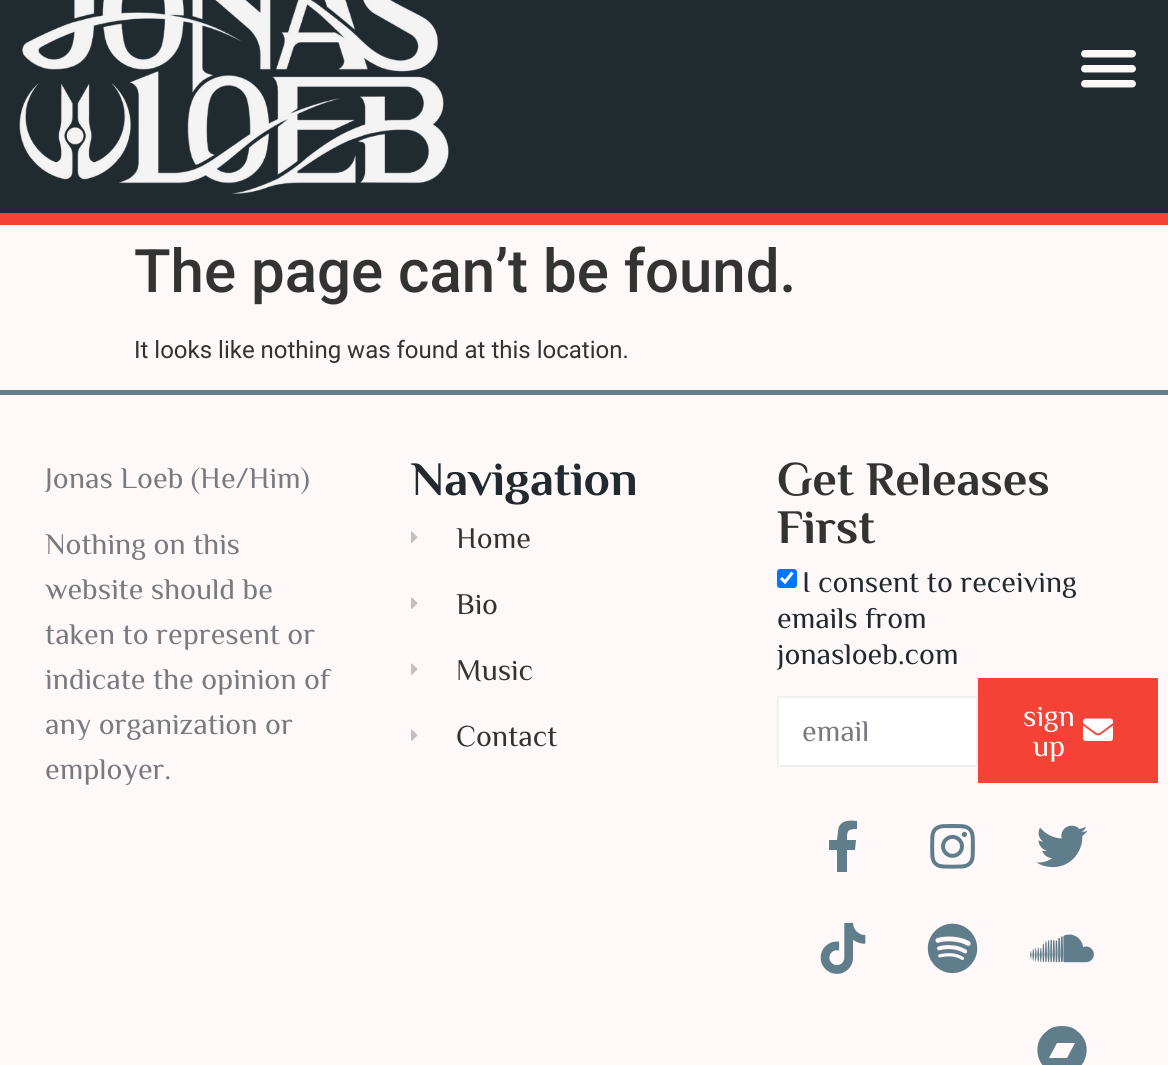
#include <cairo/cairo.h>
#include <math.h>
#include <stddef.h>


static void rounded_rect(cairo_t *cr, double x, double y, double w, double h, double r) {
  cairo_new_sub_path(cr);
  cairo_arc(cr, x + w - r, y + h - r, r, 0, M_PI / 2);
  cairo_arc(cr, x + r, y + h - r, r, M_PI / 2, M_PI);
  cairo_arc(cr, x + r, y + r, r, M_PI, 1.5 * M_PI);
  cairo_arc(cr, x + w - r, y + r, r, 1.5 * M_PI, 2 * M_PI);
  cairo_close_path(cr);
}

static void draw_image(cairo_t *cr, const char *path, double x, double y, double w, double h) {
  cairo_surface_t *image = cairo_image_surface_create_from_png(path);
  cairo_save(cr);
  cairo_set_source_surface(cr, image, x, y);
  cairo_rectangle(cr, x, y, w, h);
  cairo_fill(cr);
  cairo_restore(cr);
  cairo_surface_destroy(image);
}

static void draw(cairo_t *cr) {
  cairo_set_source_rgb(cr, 1, 248 / 255.0, 248 / 255.0);
  cairo_paint(cr);
  cairo_set_source_rgb(cr, 33 / 255.0, 42 / 255.0, 47 / 255.0);
  cairo_rectangle(cr, 0, 0, 1168, 213);
  cairo_fill(cr);
  cairo_set_source_rgb(cr, 244 / 255.0, 67 / 255.0, 54 / 255.0);
  cairo_rectangle(cr, 0, 213, 1168, 12);
  cairo_fill(cr);
  draw_image(cr, "images/1.png", 19, 0, 430, 194);
  draw_image(cr, "images/2.png", 1081, 50, 55, 38);
  cairo_set_source_rgb(cr, 96 / 255.0, 125 / 255.0, 139 / 255.0);
  cairo_rectangle(cr, 0, 390, 1168, 5);
  cairo_fill(cr);
  draw_image(cr, "images/3.png", 411, 531, 7, 12);
  draw_image(cr, "images/3.png", 411, 597, 7, 12);
  draw_image(cr, "images/3.png", 411, 663, 7, 12);
  draw_image(cr, "images/3.png", 411, 729, 7, 12);
  cairo_set_source_rgb(cr, 0, 117 / 255.0, 1);
  rounded_rect(cr, 777, 569, 20, 19, 3);
  cairo_fill(cr);
  cairo_new_path(cr);
  cairo_move_to(cr, 781, 578);
  cairo_line_to(cr, 785, 582);
  cairo_line_to(cr, 792.5, 572.5);
  cairo_set_source_rgb(cr, 1, 1, 1);
  cairo_set_line_width(cr, 3.1);
  cairo_stroke(cr);
  cairo_rectangle(cr, 778, 697, 199, 69);
  cairo_fill_preserve(cr);
  cairo_set_source_rgb(cr, 240 / 255.0, 240 / 255.0, 240 / 255.0);
  cairo_set_line_width(cr, 2);
  cairo_stroke(cr);
  cairo_set_source_rgb(cr, 244 / 255.0, 67 / 255.0, 54 / 255.0);
  cairo_rectangle(cr, 978, 678, 180, 105);
  cairo_fill(cr);
  draw_image(cr, "images/4.png", 1083, 718, 30, 23);
  cairo_set_source_rgb(cr, 96 / 255.0, 125 / 255.0, 139 / 255.0);
  cairo_new_path(cr);
  cairo_move_to(cr, 855, 850);
  cairo_line_to(cr, 847, 850);
  cairo_line_to(cr, 847, 872);
  cairo_line_to(cr, 837, 872);
  cairo_line_to(cr, 837, 850);
  cairo_line_to(cr, 829, 850);
  cairo_line_to(cr, 829, 840);
  cairo_line_to(cr, 837, 840);
  cairo_line_to(cr, 838, 831);
  cairo_curve_to(cr, 839, 820, 849, 820, 857, 821);
  cairo_line_to(cr, 857, 829);
  cairo_curve_to(cr, 847, 829, 847, 831, 847, 840);
  cairo_line_to(cr, 856, 840);
  cairo_close_path(cr);
  cairo_fill(cr);
  draw_image(cr, "images/5.png", 930, 823, 45, 46);
  draw_image(cr, "images/6.png", 1036, 825, 52, 43);
  draw_image(cr, "images/7.png", 820, 922, 46, 52);
  draw_image(cr, "images/8.png", 927, 923, 51, 51);
  draw_image(cr, "images/9.png", 1030, 934, 64, 29);
  cairo_new_path(cr);
  cairo_move_to(cr, 1062, 1026);
  cairo_curve_to(cr, 1067, 1026, 1073, 1027, 1077, 1031);
  cairo_curve_to(cr, 1096, 1045, 1085, 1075, 1062, 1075);
  cairo_curve_to(cr, 1039, 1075, 1028, 1045, 1047, 1031);
  cairo_curve_to(cr, 1051, 1027, 1057, 1026, 1062, 1026);
  cairo_close_path(cr);
  cairo_move_to(cr, 1067, 1058);
  cairo_line_to(cr, 1075, 1043);
  cairo_line_to(cr, 1057, 1043);
  cairo_line_to(cr, 1049, 1058);
  cairo_close_path(cr);
  cairo_fill(cr);
  cairo_select_font_face(cr, "Roboto Medium", CAIRO_FONT_SLANT_NORMAL, CAIRO_FONT_WEIGHT_NORMAL);
  cairo_set_font_size(cr, 60);
  cairo_set_source_rgb(cr, 51 / 255.0, 51 / 255.0, 51 / 255.0);
  cairo_move_to(cr, 134, 292);
  cairo_show_text(cr, "The page can’t be found.");
  cairo_select_font_face(cr, "Roboto", CAIRO_FONT_SLANT_NORMAL, CAIRO_FONT_WEIGHT_NORMAL);
  cairo_set_font_size(cr, 24);
  cairo_move_to(cr, 134, 358);
  cairo_show_text(cr, "It looks like nothing was found at this location.");
  cairo_select_font_face(cr, "Philosopher", CAIRO_FONT_SLANT_NORMAL, CAIRO_FONT_WEIGHT_NORMAL);
  cairo_set_font_size(cr, 30);
  cairo_set_source_rgb(cr, 120 / 255.0, 122 / 255.0, 127 / 255.0);
  cairo_move_to(cr, 45, 488);
  cairo_show_text(cr, "Jonas Loeb (He/Him)");
  cairo_move_to(cr, 45, 554);
  cairo_show_text(cr, "Nothing on this");
  cairo_move_to(cr, 45, 599);
  cairo_show_text(cr, "website should be");
  cairo_move_to(cr, 45, 644);
  cairo_show_text(cr, "taken to represent or");
  cairo_move_to(cr, 45, 689);
  cairo_show_text(cr, "indicate the opinion of");
  cairo_move_to(cr, 45, 734);
  cairo_show_text(cr, "any organization or");
  cairo_move_to(cr, 45, 779);
  cairo_show_text(cr, "employer.");
  cairo_select_font_face(cr, "Philosopher", CAIRO_FONT_SLANT_NORMAL, CAIRO_FONT_WEIGHT_BOLD);
  cairo_set_font_size(cr, 48);
  cairo_set_source_rgb(cr, 33 / 255.0, 42 / 255.0, 47 / 255.0);
  cairo_move_to(cr, 411, 495);
  cairo_show_text(cr, "Navigation");
  cairo_select_font_face(cr, "Philosopher", CAIRO_FONT_SLANT_NORMAL, CAIRO_FONT_WEIGHT_NORMAL);
  cairo_set_font_size(cr, 30);
  cairo_set_source_rgb(cr, 51 / 255.0, 51 / 255.0, 51 / 255.0);
  cairo_move_to(cr, 456, 548);
  cairo_show_text(cr, "Home");
  cairo_move_to(cr, 456, 614);
  cairo_show_text(cr, "Bio");
  cairo_move_to(cr, 456, 680);
  cairo_show_text(cr, "Music");
  cairo_move_to(cr, 456, 746);
  cairo_show_text(cr, "Contact");
  cairo_select_font_face(cr, "Philosopher", CAIRO_FONT_SLANT_NORMAL, CAIRO_FONT_WEIGHT_BOLD);
  cairo_set_font_size(cr, 48);
  cairo_move_to(cr, 777, 495);
  cairo_show_text(cr, "Get Releases");
  cairo_move_to(cr, 777, 543);
  cairo_show_text(cr, "First");
  cairo_select_font_face(cr, "Philosopher", CAIRO_FONT_SLANT_NORMAL, CAIRO_FONT_WEIGHT_NORMAL);
  cairo_set_font_size(cr, 30);
  cairo_set_source_rgb(cr, 33 / 255.0, 42 / 255.0, 47 / 255.0);
  cairo_move_to(cr, 802, 592);
  cairo_show_text(cr, "I consent to receiving");
  cairo_move_to(cr, 777, 628);
  cairo_show_text(cr, "emails from");
  cairo_move_to(cr, 777, 664);
  cairo_show_text(cr, "jonasloeb.com");
  cairo_set_source_rgb(cr, 120 / 255.0, 122 / 255.0, 127 / 255.0);
  cairo_move_to(cr, 802, 741);
  cairo_show_text(cr, "email");
  cairo_set_source_rgb(cr, 1, 1, 1);
  cairo_move_to(cr, 1023, 726);
  cairo_show_text(cr, "sign");
  cairo_move_to(cr, 1033, 756);
  cairo_show_text(cr, "up");
}

int main(void) {
  cairo_surface_t *surface = cairo_image_surface_create(CAIRO_FORMAT_RGB24, 1168, 1065);
  cairo_t *cr = cairo_create(surface);
  cairo_font_options_t *options = cairo_font_options_create();
  cairo_font_options_set_hint_metrics(options, CAIRO_HINT_METRICS_OFF);
  cairo_font_options_set_hint_style(options, CAIRO_HINT_STYLE_NONE);
  cairo_set_font_options(cr, options);
  cairo_set_miter_limit(cr, 4);
  draw(cr);
  cairo_surface_write_to_png(surface, "out.png");
  cairo_font_options_destroy(options);
  cairo_destroy(cr);
  cairo_surface_destroy(surface);
  return 0;
}
